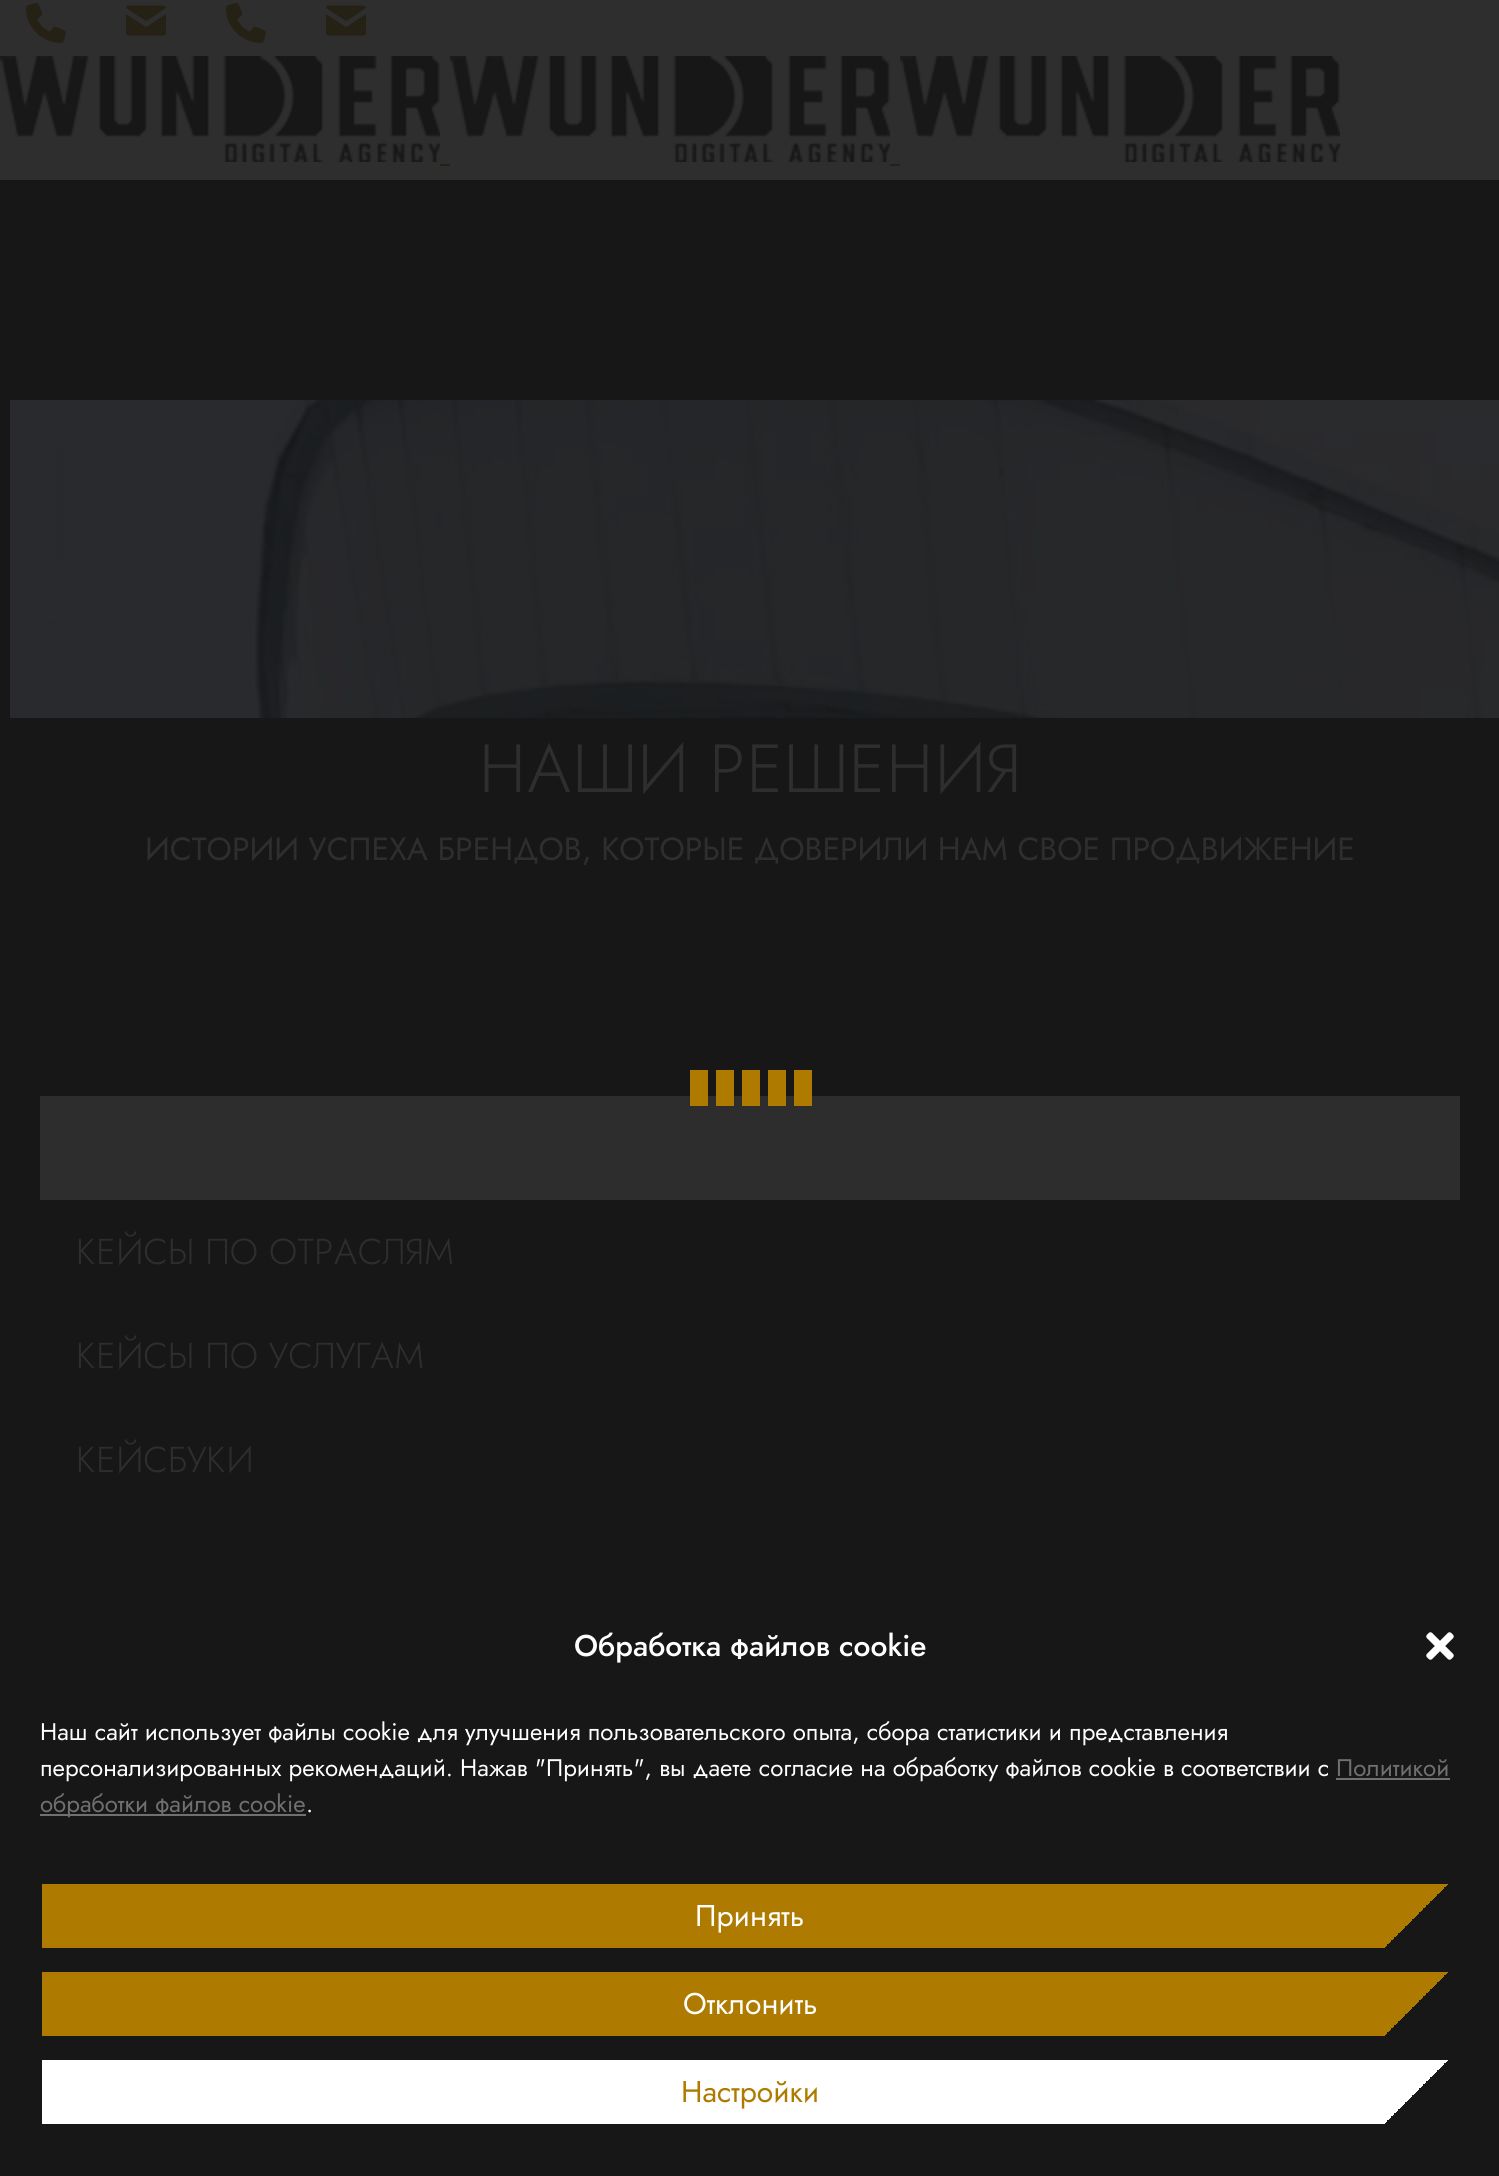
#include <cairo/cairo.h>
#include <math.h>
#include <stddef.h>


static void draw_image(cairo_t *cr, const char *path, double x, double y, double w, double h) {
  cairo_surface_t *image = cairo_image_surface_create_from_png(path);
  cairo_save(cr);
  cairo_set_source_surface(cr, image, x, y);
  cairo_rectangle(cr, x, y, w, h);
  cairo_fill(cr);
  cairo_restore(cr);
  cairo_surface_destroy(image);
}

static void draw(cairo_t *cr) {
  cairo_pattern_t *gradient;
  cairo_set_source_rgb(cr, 23 / 255.0, 23 / 255.0, 23 / 255.0);
  cairo_paint(cr);
  cairo_set_source_rgb(cr, 46 / 255.0, 46 / 255.0, 46 / 255.0);
  cairo_rectangle(cr, 0, 0, 1499, 180);
  cairo_fill(cr);
  draw_image(cr, "images/1.png", 26, 3, 40, 40);
  draw_image(cr, "images/2.png", 126, 5, 40, 31);
  draw_image(cr, "images/1.png", 226, 3, 40, 40);
  draw_image(cr, "images/2.png", 326, 5, 40, 31);
  draw_image(cr, "images/3.png", 0, 56, 440, 106);
  draw_image(cr, "images/3.png", 450, 56, 440, 106);
  draw_image(cr, "images/3.png", 900, 56, 440, 106);
  cairo_set_source_rgb(cr, 38 / 255.0, 33 / 255.0, 21 / 255.0);
  cairo_rectangle(cr, 440, 164, 10, 2);
  cairo_fill(cr);
  cairo_rectangle(cr, 890, 164, 10, 2);
  cairo_fill(cr);
  draw_image(cr, "images/4.png", 10, 400, 1489, 318);
  cairo_set_source_rgb(cr, 45 / 255.0, 45 / 255.0, 45 / 255.0);
  cairo_rectangle(cr, 40, 1096, 1420, 104);
  cairo_fill(cr);
  cairo_set_source_rgb(cr, 174 / 255.0, 123 / 255.0, 0);
  cairo_rectangle(cr, 690, 1070, 18, 36);
  cairo_fill(cr);
  cairo_rectangle(cr, 716, 1070, 18, 36);
  cairo_fill(cr);
  cairo_rectangle(cr, 742, 1070, 18, 36);
  cairo_fill(cr);
  cairo_rectangle(cr, 768, 1070, 18, 36);
  cairo_fill(cr);
  cairo_rectangle(cr, 794, 1070, 18, 36);
  cairo_fill(cr);
  draw_image(cr, "images/5.png", 1426, 1632, 28, 28);
  cairo_set_source_rgb(cr, 112 / 255.0, 112 / 255.0, 112 / 255.0);
  cairo_rectangle(cr, 1336, 1778, 114, 2);
  cairo_fill(cr);
  cairo_rectangle(cr, 40, 1814, 266, 2);
  cairo_fill(cr);
  gradient = cairo_pattern_create_linear(380, 1546, 1120, 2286);
  cairo_pattern_add_color_stop_rgba(gradient, 0, 174 / 255.0, 123 / 255.0, 0, 1);
  cairo_pattern_add_color_stop_rgba(gradient, 0.95, 174 / 255.0, 123 / 255.0, 0, 1);
  cairo_pattern_add_color_stop_rgba(gradient, 0.95, 23 / 255.0, 23 / 255.0, 23 / 255.0, 1);
  cairo_set_source(cr, gradient);
  cairo_pattern_destroy(gradient);
  cairo_rectangle(cr, 42, 1884, 1406, 64);
  cairo_fill(cr);
  gradient = cairo_pattern_create_linear(380, 1634, 1120, 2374);
  cairo_pattern_add_color_stop_rgba(gradient, 0, 174 / 255.0, 123 / 255.0, 0, 1);
  cairo_pattern_add_color_stop_rgba(gradient, 0.95, 174 / 255.0, 123 / 255.0, 0, 1);
  cairo_pattern_add_color_stop_rgba(gradient, 0.95, 23 / 255.0, 23 / 255.0, 23 / 255.0, 1);
  cairo_set_source(cr, gradient);
  cairo_pattern_destroy(gradient);
  cairo_rectangle(cr, 42, 1972, 1406, 64);
  cairo_fill(cr);
  gradient = cairo_pattern_create_linear(380, 1722, 1120, 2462);
  cairo_pattern_add_color_stop_rgba(gradient, 0, 1, 1, 1, 1);
  cairo_pattern_add_color_stop_rgba(gradient, 0.95, 1, 1, 1, 1);
  cairo_pattern_add_color_stop_rgba(gradient, 0.95, 23 / 255.0, 23 / 255.0, 23 / 255.0, 1);
  cairo_set_source(cr, gradient);
  cairo_pattern_destroy(gradient);
  cairo_rectangle(cr, 42, 2060, 1406, 64);
  cairo_fill(cr);
  cairo_select_font_face(cr, "Jost Light", CAIRO_FONT_SLANT_NORMAL, CAIRO_FONT_WEIGHT_NORMAL);
  cairo_set_font_size(cr, 68);
  cairo_set_source_rgb(cr, 46 / 255.0, 46 / 255.0, 46 / 255.0);
  cairo_move_to(cr, 479, 792);
  cairo_show_text(cr, "НАШИ РЕШЕНИЯ");
  cairo_select_font_face(cr, "Jost", CAIRO_FONT_SLANT_NORMAL, CAIRO_FONT_WEIGHT_NORMAL);
  cairo_set_font_size(cr, 32);
  cairo_move_to(cr, 145, 860);
  cairo_show_text(cr, "ИСТОРИИ УСПЕХА БРЕНДОВ, КОТОРЫЕ ДОВЕРИЛИ НАМ СВОЕ ПРОДВИЖЕНИЕ");
  cairo_select_font_face(cr, "Jost Light", CAIRO_FONT_SLANT_NORMAL, CAIRO_FONT_WEIGHT_NORMAL);
  cairo_set_font_size(cr, 36);
  cairo_move_to(cr, 76, 1264);
  cairo_show_text(cr, "КЕЙСЫ ПО ОТРАСЛЯМ");
  cairo_move_to(cr, 76, 1368);
  cairo_show_text(cr, "КЕЙСЫ ПО УСЛУГАМ");
  cairo_move_to(cr, 76, 1472);
  cairo_show_text(cr, "КЕЙСБУКИ");
  cairo_select_font_face(cr, "Jost Medium", CAIRO_FONT_SLANT_NORMAL, CAIRO_FONT_WEIGHT_NORMAL);
  cairo_set_font_size(cr, 30);
  cairo_set_source_rgb(cr, 1, 1, 1);
  cairo_move_to(cr, 574, 1656);
  cairo_show_text(cr, "Обработка файлов cookie");
  cairo_select_font_face(cr, "Jost", CAIRO_FONT_SLANT_NORMAL, CAIRO_FONT_WEIGHT_NORMAL);
  cairo_set_font_size(cr, 24);
  cairo_move_to(cr, 40, 1740);
  cairo_show_text(cr, "Наш сайт использует файлы cookie для улучшения пользовательского опыта, сбора статистики и представления");
  cairo_move_to(cr, 40, 1776);
  cairo_show_text(cr, "персонализированных рекомендаций. Нажав \"Принять\", вы даете согласие на обработку файлов cookie в соответствии с");
  cairo_set_source_rgb(cr, 112 / 255.0, 112 / 255.0, 112 / 255.0);
  cairo_move_to(cr, 1336, 1776);
  cairo_show_text(cr, "Политикой");
  cairo_move_to(cr, 40, 1812);
  cairo_show_text(cr, "обработки файлов cookie");
  cairo_set_source_rgb(cr, 1, 1, 1);
  cairo_move_to(cr, 306, 1812);
  cairo_show_text(cr, ".");
  cairo_set_font_size(cr, 30);
  cairo_move_to(cr, 695, 1926);
  cairo_show_text(cr, "Принять");
  cairo_move_to(cr, 683, 2014);
  cairo_show_text(cr, "Отклонить");
  cairo_set_source_rgb(cr, 174 / 255.0, 123 / 255.0, 0);
  cairo_move_to(cr, 681, 2102);
  cairo_show_text(cr, "Настройки");
}

int main(void) {
  cairo_surface_t *surface = cairo_image_surface_create(CAIRO_FORMAT_RGB24, 1499, 2176);
  cairo_t *cr = cairo_create(surface);
  cairo_font_options_t *options = cairo_font_options_create();
  cairo_font_options_set_hint_metrics(options, CAIRO_HINT_METRICS_OFF);
  cairo_font_options_set_hint_style(options, CAIRO_HINT_STYLE_NONE);
  cairo_set_font_options(cr, options);
  cairo_set_miter_limit(cr, 4);
  draw(cr);
  cairo_surface_write_to_png(surface, "out.png");
  cairo_font_options_destroy(options);
  cairo_destroy(cr);
  cairo_surface_destroy(surface);
  return 0;
}
